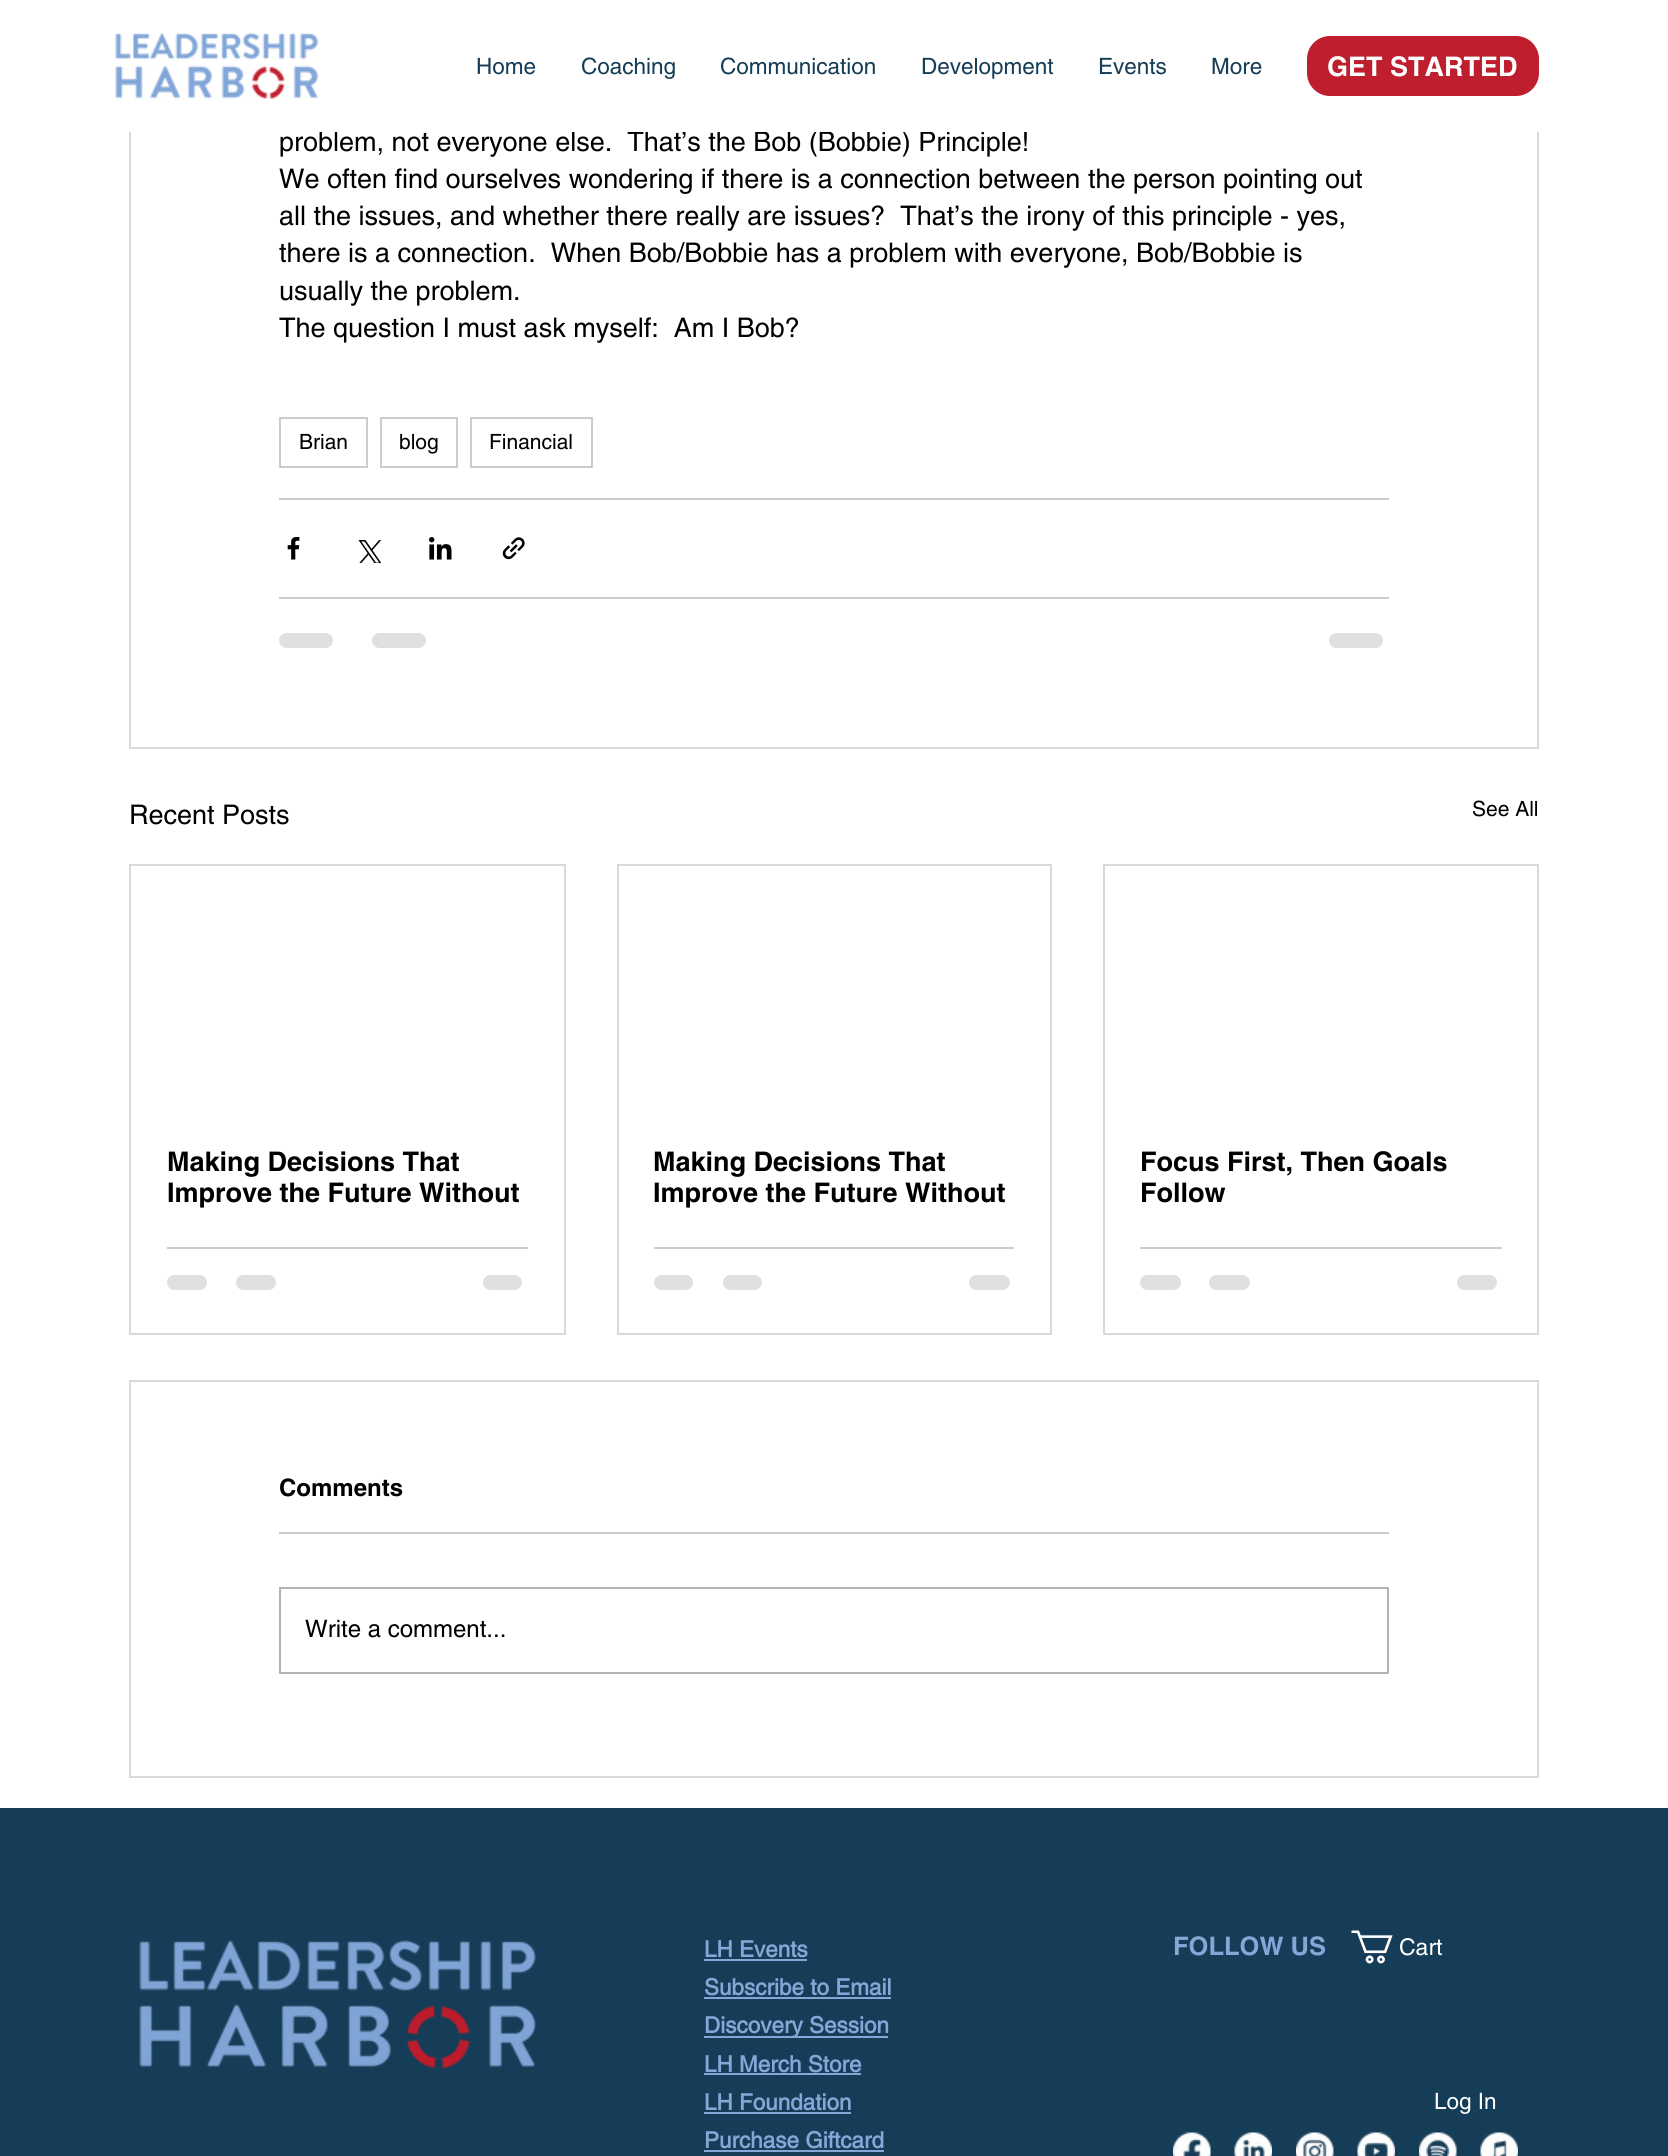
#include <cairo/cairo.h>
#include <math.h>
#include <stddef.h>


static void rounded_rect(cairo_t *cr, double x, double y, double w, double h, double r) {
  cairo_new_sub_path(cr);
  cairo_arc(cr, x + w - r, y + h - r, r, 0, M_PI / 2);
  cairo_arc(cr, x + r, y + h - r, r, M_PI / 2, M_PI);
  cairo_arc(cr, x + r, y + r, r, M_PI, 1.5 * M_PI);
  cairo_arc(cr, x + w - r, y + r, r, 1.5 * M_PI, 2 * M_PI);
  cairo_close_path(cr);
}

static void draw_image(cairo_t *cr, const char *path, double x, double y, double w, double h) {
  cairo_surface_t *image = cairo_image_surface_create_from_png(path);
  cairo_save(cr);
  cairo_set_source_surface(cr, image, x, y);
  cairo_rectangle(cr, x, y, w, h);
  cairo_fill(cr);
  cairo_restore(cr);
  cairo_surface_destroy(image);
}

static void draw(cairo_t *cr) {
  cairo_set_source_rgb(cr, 1, 1, 1);
  cairo_paint(cr);
  cairo_rectangle(cr, 130, -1, 1408, 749);
  cairo_set_source_rgb(cr, 217 / 255.0, 217 / 255.0, 217 / 255.0);
  cairo_stroke(cr);
  cairo_rectangle(cr, 280, 418, 87, 49);
  cairo_set_source_rgb(cr, 204 / 255.0, 204 / 255.0, 204 / 255.0);
  cairo_stroke(cr);
  cairo_rectangle(cr, 381, 418, 76, 49);
  cairo_stroke(cr);
  cairo_rectangle(cr, 471, 418, 121, 49);
  cairo_stroke(cr);
  cairo_rectangle(cr, 279, 498, 1110, 2);
  cairo_fill(cr);
  draw_image(cr, "images/2.png", 287, 537, 13, 23);
  draw_image(cr, "images/3.png", 358, 540, 23, 23);
  draw_image(cr, "images/4.png", 429, 537, 23, 23);
  draw_image(cr, "images/5.png", 502, 537, 23, 23);
  cairo_rectangle(cr, 279, 597, 1110, 2);
  cairo_fill(cr);
  cairo_set_source_rgb(cr, 224 / 255.0, 224 / 255.0, 224 / 255.0);
  rounded_rect(cr, 279, 633, 54, 15, 7.5);
  cairo_fill(cr);
  rounded_rect(cr, 372, 633, 54, 15, 7.5);
  cairo_fill(cr);
  rounded_rect(cr, 1329, 633, 54, 15, 7.5);
  cairo_fill(cr);
  cairo_rectangle(cr, 130, 865, 435, 469);
  cairo_set_source_rgb(cr, 217 / 255.0, 217 / 255.0, 217 / 255.0);
  cairo_stroke(cr);
  cairo_set_source_rgb(cr, 204 / 255.0, 204 / 255.0, 204 / 255.0);
  cairo_rectangle(cr, 167, 1247, 361, 2);
  cairo_fill(cr);
  cairo_set_source_rgb(cr, 224 / 255.0, 224 / 255.0, 224 / 255.0);
  rounded_rect(cr, 167, 1275, 40, 15, 7.5);
  cairo_fill(cr);
  rounded_rect(cr, 236, 1275, 40, 15, 7.5);
  cairo_fill(cr);
  rounded_rect(cr, 483, 1275, 39, 15, 7.5);
  cairo_fill(cr);
  cairo_rectangle(cr, 618, 865, 433, 469);
  cairo_set_source_rgb(cr, 217 / 255.0, 217 / 255.0, 217 / 255.0);
  cairo_stroke(cr);
  cairo_set_source_rgb(cr, 204 / 255.0, 204 / 255.0, 204 / 255.0);
  cairo_rectangle(cr, 654, 1247, 360, 2);
  cairo_fill(cr);
  cairo_set_source_rgb(cr, 224 / 255.0, 224 / 255.0, 224 / 255.0);
  rounded_rect(cr, 654, 1275, 39, 15, 7.5);
  cairo_fill(cr);
  rounded_rect(cr, 723, 1275, 39, 15, 7.5);
  cairo_fill(cr);
  rounded_rect(cr, 969, 1275, 41, 15, 7.5);
  cairo_fill(cr);
  cairo_rectangle(cr, 1104, 865, 434, 469);
  cairo_set_source_rgb(cr, 217 / 255.0, 217 / 255.0, 217 / 255.0);
  cairo_stroke(cr);
  cairo_set_source_rgb(cr, 204 / 255.0, 204 / 255.0, 204 / 255.0);
  cairo_rectangle(cr, 1140, 1247, 362, 2);
  cairo_fill(cr);
  cairo_set_source_rgb(cr, 224 / 255.0, 224 / 255.0, 224 / 255.0);
  rounded_rect(cr, 1140, 1275, 41, 15, 7.5);
  cairo_fill(cr);
  rounded_rect(cr, 1209, 1275, 41, 15, 7.5);
  cairo_fill(cr);
  rounded_rect(cr, 1457, 1275, 40, 15, 7.5);
  cairo_fill(cr);
  cairo_rectangle(cr, 130, 1381, 1408, 396);
  cairo_set_source_rgb(cr, 217 / 255.0, 217 / 255.0, 217 / 255.0);
  cairo_stroke(cr);
  cairo_set_source_rgb(cr, 204 / 255.0, 204 / 255.0, 204 / 255.0);
  cairo_rectangle(cr, 279, 1532, 1110, 2);
  cairo_fill(cr);
  cairo_rectangle(cr, 280, 1588, 1108, 85);
  cairo_set_source_rgb(cr, 179 / 255.0, 179 / 255.0, 179 / 255.0);
  cairo_stroke(cr);
  cairo_set_source_rgb(cr, 22 / 255.0, 61 / 255.0, 87 / 255.0);
  cairo_rectangle(cr, 0, 1808, 1668, 348);
  cairo_fill(cr);
  draw_image(cr, "images/6.png", 139, 1940, 397, 129);
  cairo_set_source_rgb(cr, 131 / 255.0, 167 / 255.0, 215 / 255.0);
  cairo_rectangle(cr, 704, 1959, 103, 2);
  cairo_fill(cr);
  cairo_rectangle(cr, 704, 1997, 187, 2);
  cairo_fill(cr);
  cairo_rectangle(cr, 704, 2036, 184, 2);
  cairo_fill(cr);
  cairo_rectangle(cr, 704, 2073, 157, 2);
  cairo_fill(cr);
  cairo_rectangle(cr, 704, 2112, 147, 2);
  cairo_fill(cr);
  cairo_rectangle(cr, 704, 2150, 180, 2);
  cairo_fill(cr);
  draw_image(cr, "images/7.png", 1351, 1930, 42, 34);
  draw_image(cr, "images/8.png", 1173, 2132, 38, 24);
  draw_image(cr, "images/9.png", 1234, 2132, 38, 24);
  draw_image(cr, "images/10.png", 1296, 2132, 38, 24);
  draw_image(cr, "images/11.png", 1357, 2132, 38, 24);
  draw_image(cr, "images/12.png", 1419, 2132, 38, 24);
  draw_image(cr, "images/13.png", 1480, 2132, 38, 24);
  cairo_select_font_face(cr, "helvetica", CAIRO_FONT_SLANT_NORMAL, CAIRO_FONT_WEIGHT_NORMAL);
  cairo_set_font_size(cr, 27);
  cairo_set_source_rgb(cr, 0, 0, 0);
  cairo_move_to(cr, 279, 151);
  cairo_show_text(cr, "problem, not everyone else.  That’s the Bob (Bobbie) Principle!");
  cairo_set_source_rgb(cr, 1, 1, 1);
  cairo_rectangle(cr, 129, 0, 1410, 132);
  cairo_fill(cr);
  cairo_set_source_rgb(cr, 190 / 255.0, 30 / 255.0, 45 / 255.0);
  rounded_rect(cr, 1308.5, 37.5, 229, 57, 21.5);
  cairo_fill_preserve(cr);
  cairo_set_line_width(cr, 3);
  cairo_stroke(cr);
  cairo_select_font_face(cr, "helvetica", CAIRO_FONT_SLANT_NORMAL, CAIRO_FONT_WEIGHT_BOLD);
  cairo_set_source_rgb(cr, 1, 1, 1);
  cairo_move_to(cr, 1327, 76);
  cairo_show_text(cr, "GET STARTED");
  cairo_select_font_face(cr, "helvetica", CAIRO_FONT_SLANT_NORMAL, CAIRO_FONT_WEIGHT_NORMAL);
  cairo_set_font_size(cr, 22.5);
  cairo_set_source_rgb(cr, 22 / 255.0, 61 / 255.0, 87 / 255.0);
  cairo_move_to(cr, 1211, 74);
  cairo_show_text(cr, "More");
  cairo_move_to(cr, 1098, 74);
  cairo_show_text(cr, "Events");
  cairo_move_to(cr, 921, 74);
  cairo_show_text(cr, "Development");
  cairo_move_to(cr, 720, 74);
  cairo_show_text(cr, "Communication");
  cairo_move_to(cr, 581, 74);
  cairo_show_text(cr, "Coaching");
  cairo_move_to(cr, 476, 74);
  cairo_show_text(cr, "Home");
  draw_image(cr, "images/1.png", 115, 32, 204, 67);
  cairo_set_font_size(cr, 27);
  cairo_set_source_rgb(cr, 0, 0, 0);
  cairo_move_to(cr, 279, 188);
  cairo_show_text(cr, "We often find ourselves wondering if there is a connection between the person pointing out");
  cairo_move_to(cr, 279, 225);
  cairo_show_text(cr, "all the issues, and whether there really are issues?  That’s the irony of this principle - yes,");
  cairo_move_to(cr, 279, 262);
  cairo_show_text(cr, "there is a connection.  When Bob/Bobbie has a problem with everyone, Bob/Bobbie is");
  cairo_move_to(cr, 279, 300);
  cairo_show_text(cr, "usually the problem.");
  cairo_move_to(cr, 279, 337);
  cairo_show_text(cr, "The question I must ask myself:  Am I Bob?");
  cairo_set_font_size(cr, 21);
  cairo_move_to(cr, 299, 449);
  cairo_show_text(cr, "Brian");
  cairo_move_to(cr, 399, 449);
  cairo_show_text(cr, "blog");
  cairo_move_to(cr, 489, 449);
  cairo_show_text(cr, "Financial");
  cairo_set_font_size(cr, 27);
  cairo_move_to(cr, 129, 824);
  cairo_show_text(cr, "Recent Posts");
  cairo_set_font_size(cr, 21);
  cairo_move_to(cr, 1472, 816);
  cairo_show_text(cr, "See All");
  cairo_select_font_face(cr, "helvetica", CAIRO_FONT_SLANT_NORMAL, CAIRO_FONT_WEIGHT_BOLD);
  cairo_set_font_size(cr, 27);
  cairo_move_to(cr, 167, 1171);
  cairo_show_text(cr, "Making Decisions That");
  cairo_move_to(cr, 167, 1202);
  cairo_show_text(cr, "Improve the Future Without");
  cairo_move_to(cr, 653, 1171);
  cairo_show_text(cr, "Making Decisions That");
  cairo_move_to(cr, 653, 1202);
  cairo_show_text(cr, "Improve the Future Without");
  cairo_move_to(cr, 1140, 1171);
  cairo_show_text(cr, "Focus First, Then Goals");
  cairo_move_to(cr, 1140, 1202);
  cairo_show_text(cr, "Follow");
  cairo_set_font_size(cr, 24);
  cairo_move_to(cr, 279, 1496);
  cairo_show_text(cr, "Comments");
  cairo_select_font_face(cr, "helvetica", CAIRO_FONT_SLANT_NORMAL, CAIRO_FONT_WEIGHT_NORMAL);
  cairo_move_to(cr, 305, 1637);
  cairo_show_text(cr, "Write a comment...");
  cairo_select_font_face(cr, "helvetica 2", CAIRO_FONT_SLANT_NORMAL, CAIRO_FONT_WEIGHT_BOLD);
  cairo_set_font_size(cr, 22.5);
  cairo_set_source_rgb(cr, 131 / 255.0, 167 / 255.0, 215 / 255.0);
  cairo_move_to(cr, 704, 1957);
  cairo_show_text(cr, "LH Events");
  cairo_move_to(cr, 704, 1995);
  cairo_show_text(cr, "Subscribe to Email");
  cairo_move_to(cr, 704, 2033);
  cairo_show_text(cr, "Discovery Session");
  cairo_move_to(cr, 704, 2072);
  cairo_show_text(cr, "LH Merch Store");
  cairo_move_to(cr, 704, 2110);
  cairo_show_text(cr, "LH Foundation");
  cairo_move_to(cr, 704, 2148);
  cairo_show_text(cr, "Purchase Giftcard");
  cairo_select_font_face(cr, "helvetica", CAIRO_FONT_SLANT_NORMAL, CAIRO_FONT_WEIGHT_BOLD);
  cairo_set_font_size(cr, 25.5);
  cairo_move_to(cr, 1173, 1955);
  cairo_show_text(cr, "FOLLOW US");
  cairo_select_font_face(cr, "helvetica", CAIRO_FONT_SLANT_NORMAL, CAIRO_FONT_WEIGHT_NORMAL);
  cairo_set_font_size(cr, 23);
  cairo_set_source_rgb(cr, 1, 1, 1);
  cairo_move_to(cr, 1399, 1955);
  cairo_show_text(cr, "Cart");
  cairo_set_font_size(cr, 22.5);
  cairo_move_to(cr, 1434, 2109);
  cairo_show_text(cr, "Log In");
}

int main(void) {
  cairo_surface_t *surface = cairo_image_surface_create(CAIRO_FORMAT_RGB24, 1668, 2156);
  cairo_t *cr = cairo_create(surface);
  cairo_font_options_t *options = cairo_font_options_create();
  cairo_font_options_set_hint_metrics(options, CAIRO_HINT_METRICS_OFF);
  cairo_font_options_set_hint_style(options, CAIRO_HINT_STYLE_NONE);
  cairo_set_font_options(cr, options);
  cairo_set_miter_limit(cr, 4);
  draw(cr);
  cairo_surface_write_to_png(surface, "out.png");
  cairo_font_options_destroy(options);
  cairo_destroy(cr);
  cairo_surface_destroy(surface);
  return 0;
}
